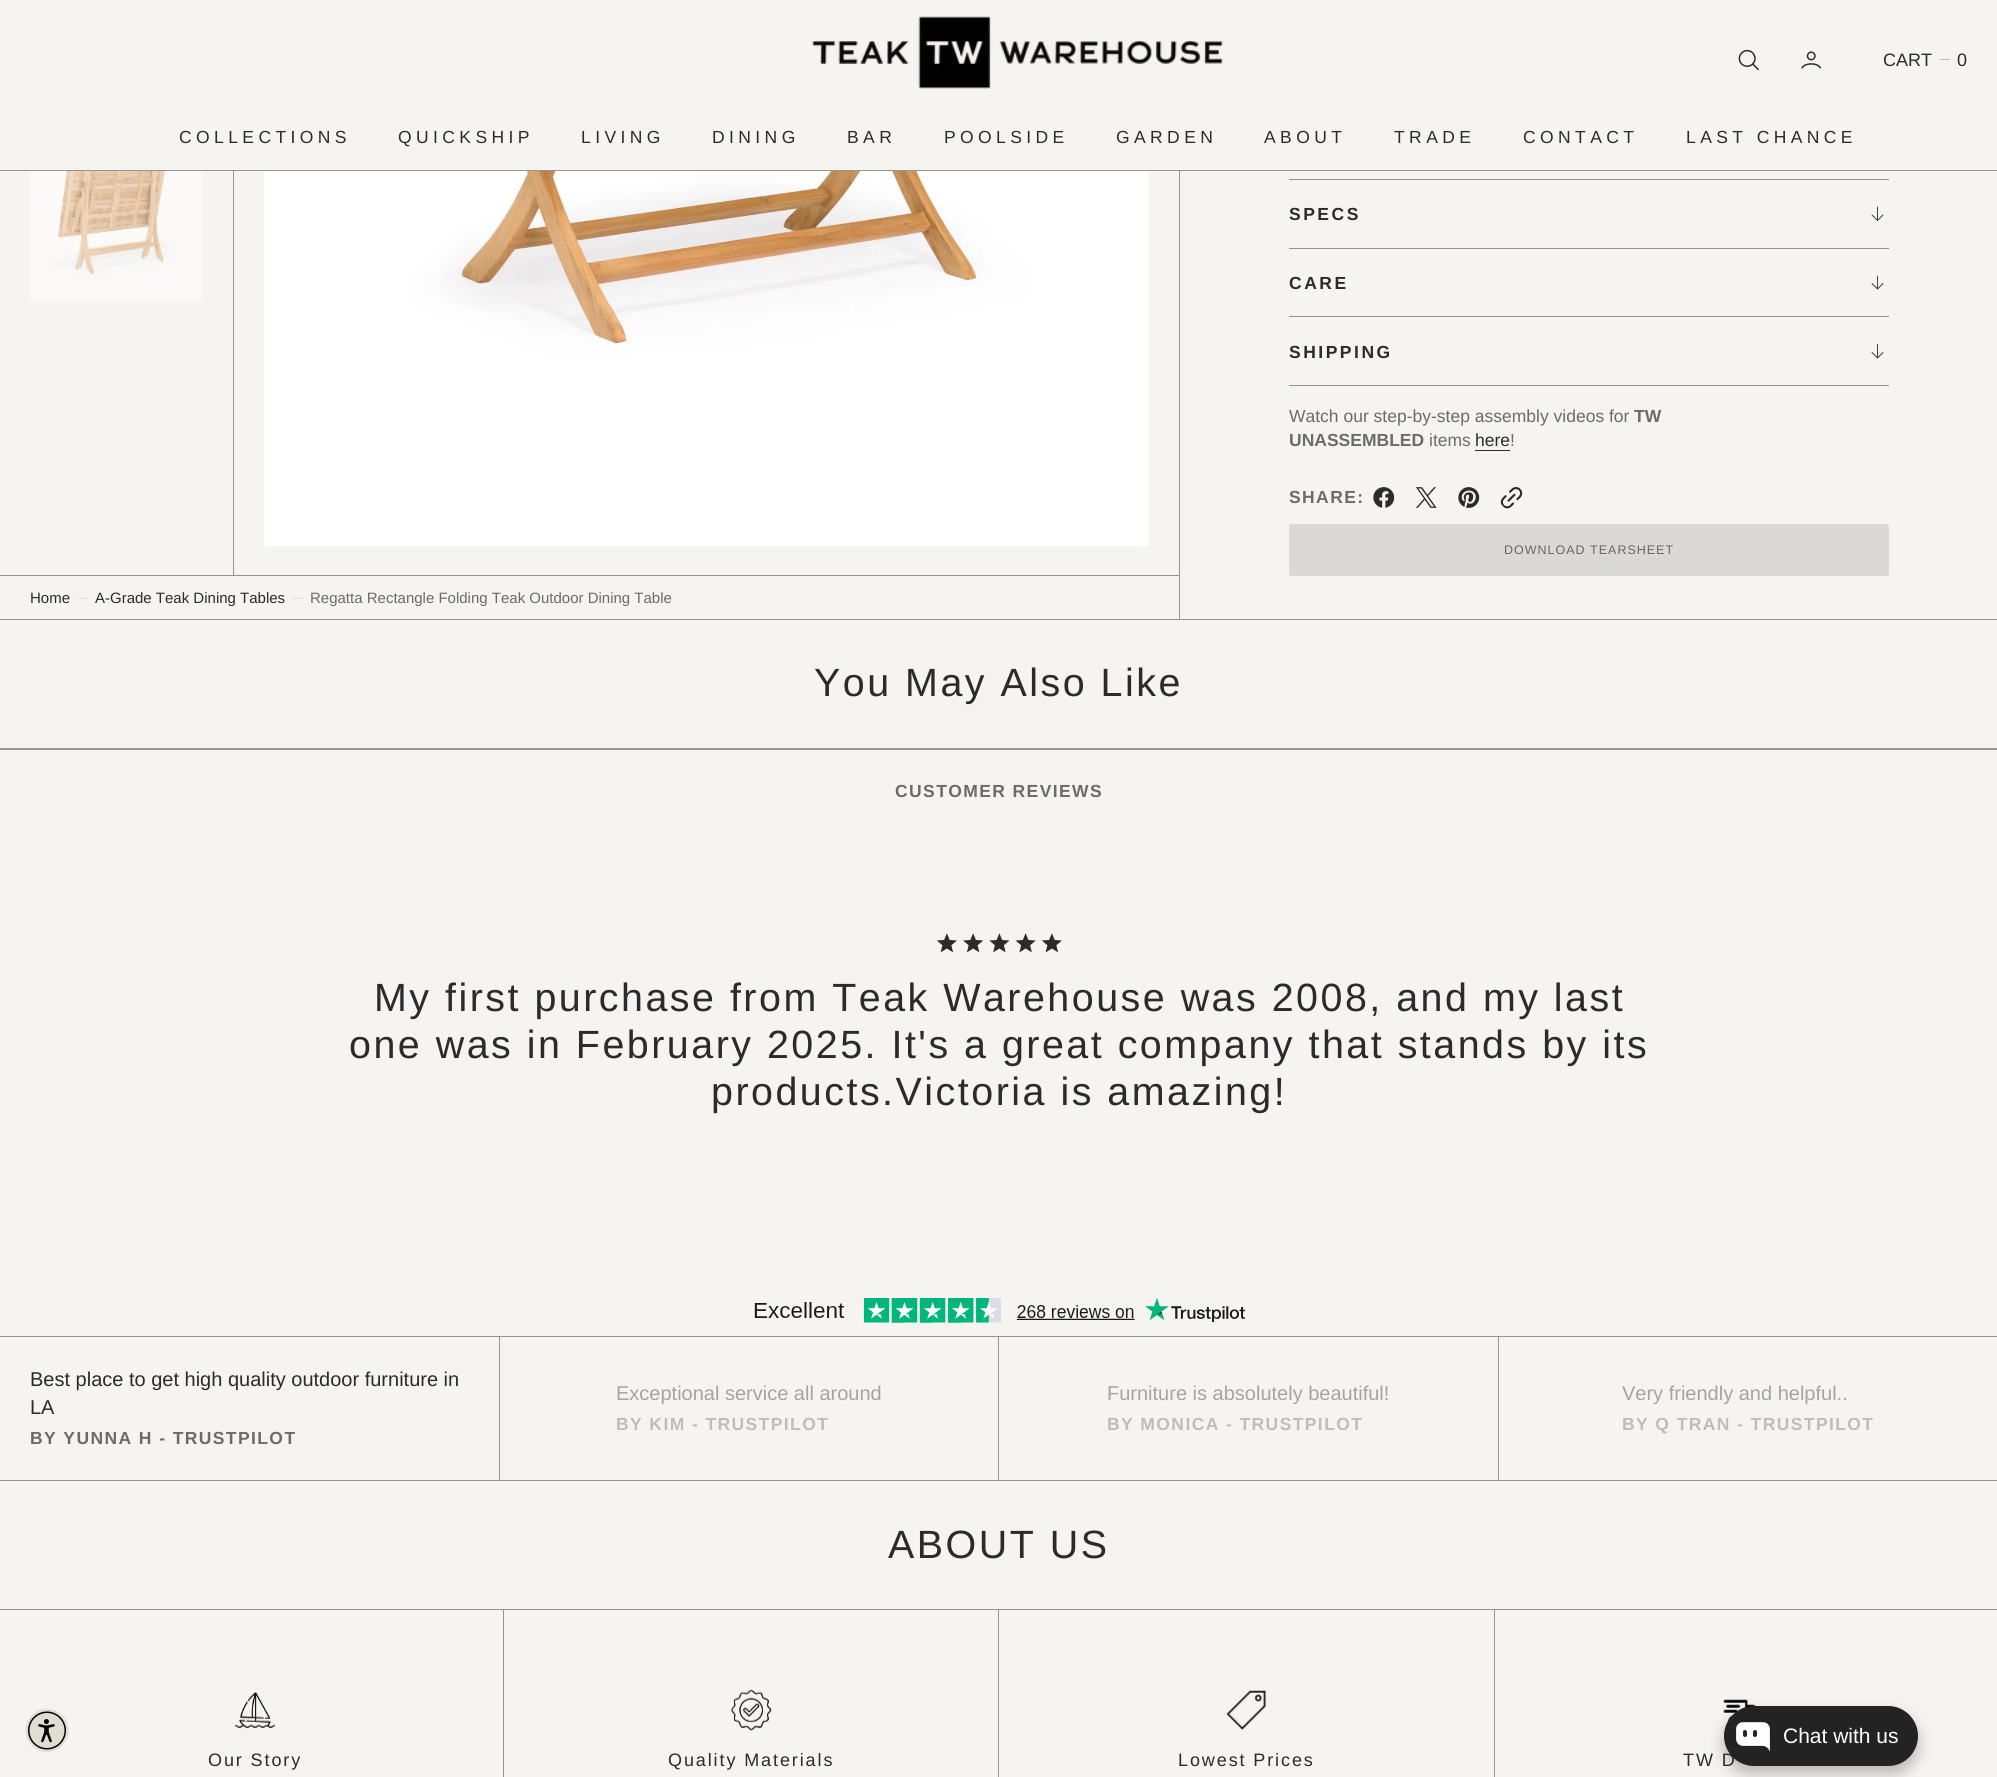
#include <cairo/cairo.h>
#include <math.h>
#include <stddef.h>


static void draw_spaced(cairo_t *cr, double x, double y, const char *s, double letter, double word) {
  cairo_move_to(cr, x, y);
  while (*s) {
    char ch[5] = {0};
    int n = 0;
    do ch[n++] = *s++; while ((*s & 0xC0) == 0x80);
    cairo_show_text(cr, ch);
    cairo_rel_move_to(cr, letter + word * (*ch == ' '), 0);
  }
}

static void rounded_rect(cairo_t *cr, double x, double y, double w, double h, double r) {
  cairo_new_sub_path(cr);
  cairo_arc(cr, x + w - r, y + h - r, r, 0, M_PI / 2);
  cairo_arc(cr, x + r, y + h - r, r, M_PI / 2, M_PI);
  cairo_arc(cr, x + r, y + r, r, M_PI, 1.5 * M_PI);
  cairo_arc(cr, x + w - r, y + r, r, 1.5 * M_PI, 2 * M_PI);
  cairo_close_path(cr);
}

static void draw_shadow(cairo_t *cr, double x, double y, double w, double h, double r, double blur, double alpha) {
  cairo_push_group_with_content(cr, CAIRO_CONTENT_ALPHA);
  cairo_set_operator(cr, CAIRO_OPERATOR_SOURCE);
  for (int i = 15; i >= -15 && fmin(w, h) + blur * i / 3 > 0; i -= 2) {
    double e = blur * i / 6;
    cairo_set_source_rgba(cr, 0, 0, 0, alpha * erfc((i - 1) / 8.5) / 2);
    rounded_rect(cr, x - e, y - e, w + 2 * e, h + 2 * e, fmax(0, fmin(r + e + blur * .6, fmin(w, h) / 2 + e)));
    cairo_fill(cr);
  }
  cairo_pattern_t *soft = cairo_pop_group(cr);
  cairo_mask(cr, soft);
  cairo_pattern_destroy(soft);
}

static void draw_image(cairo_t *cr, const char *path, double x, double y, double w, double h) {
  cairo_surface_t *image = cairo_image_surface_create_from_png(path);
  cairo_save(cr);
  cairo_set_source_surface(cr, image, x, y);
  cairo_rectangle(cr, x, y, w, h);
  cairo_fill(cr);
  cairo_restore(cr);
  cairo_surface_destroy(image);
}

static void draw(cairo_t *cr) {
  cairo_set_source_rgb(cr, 246 / 255.0, 244 / 255.0, 240 / 255.0);
  cairo_paint(cr);
  cairo_set_source_rgb(cr, 149 / 255.0, 149 / 255.0, 148 / 255.0);
  cairo_rectangle(cr, 0, 170, 1997, 1);
  cairo_fill(cr);
  draw_image(cr, "images/1.png", 1738, 49, 21, 22);
  draw_image(cr, "images/2.png", 1801, 51, 21, 18);
  cairo_set_source_rgb(cr, 185 / 255.0, 184 / 255.0, 181 / 255.0);
  cairo_rectangle(cr, 1940, 59, 10, 1);
  cairo_fill(cr);
  draw_image(cr, "images/3.png", 812, 16, 411, 73);
  cairo_set_source_rgb(cr, 149 / 255.0, 149 / 255.0, 148 / 255.0);
  cairo_rectangle(cr, 0, 619, 1997, 1);
  cairo_fill(cr);
  cairo_rectangle(cr, 1179, 171, 1, 448);
  cairo_fill(cr);
  cairo_rectangle(cr, 1289, 179, 600, 1);
  cairo_fill(cr);
  cairo_rectangle(cr, 1289, 248, 600, 1);
  cairo_fill(cr);
  cairo_new_path(cr);
  cairo_move_to(cr, 1883, 215);
  cairo_line_to(cr, 1877.5, 220.5);
  cairo_move_to(cr, 1877.5, 220.5);
  cairo_line_to(cr, 1872, 215);
  cairo_move_to(cr, 1877.5, 220.5);
  cairo_line_to(cr, 1877.5, 207);
  cairo_set_source_rgb(cr, 43 / 255.0, 43 / 255.0, 43 / 255.0);
  cairo_set_line_width(cr, 0.9);
  cairo_set_line_cap(cr, CAIRO_LINE_CAP_ROUND);
  cairo_set_line_join(cr, CAIRO_LINE_JOIN_ROUND);
  cairo_stroke(cr);
  cairo_set_source_rgb(cr, 149 / 255.0, 149 / 255.0, 148 / 255.0);
  cairo_rectangle(cr, 1289, 316, 600, 1);
  cairo_fill(cr);
  cairo_new_path(cr);
  cairo_move_to(cr, 1883, 283.5);
  cairo_line_to(cr, 1877.5, 289);
  cairo_move_to(cr, 1877.5, 289);
  cairo_line_to(cr, 1872, 283.5);
  cairo_move_to(cr, 1877.5, 289);
  cairo_line_to(cr, 1877.5, 276);
  cairo_set_source_rgb(cr, 43 / 255.0, 43 / 255.0, 43 / 255.0);
  cairo_stroke(cr);
  cairo_set_source_rgb(cr, 149 / 255.0, 149 / 255.0, 148 / 255.0);
  cairo_rectangle(cr, 1289, 385, 600, 1);
  cairo_fill(cr);
  cairo_new_path(cr);
  cairo_move_to(cr, 1883, 352.5);
  cairo_line_to(cr, 1877.5, 358);
  cairo_move_to(cr, 1877.5, 358);
  cairo_line_to(cr, 1872, 352.5);
  cairo_move_to(cr, 1877.5, 358);
  cairo_line_to(cr, 1877.5, 344.5);
  cairo_set_source_rgb(cr, 43 / 255.0, 43 / 255.0, 43 / 255.0);
  cairo_stroke(cr);
  cairo_rectangle(cr, 1475, 450, 35, 1);
  cairo_fill(cr);
  draw_image(cr, "images/4.png", 1373, 487, 22, 21);
  draw_image(cr, "images/5.png", 1416, 487, 21, 21);
  draw_image(cr, "images/6.png", 1458, 487, 22, 21);
  draw_image(cr, "images/7.png", 1500, 487, 23, 22);
  cairo_set_source_rgb(cr, 219 / 255.0, 216 / 255.0, 216 / 255.0);
  rounded_rect(cr, 1289, 524, 600, 52, 2.5);
  cairo_fill(cr);
  cairo_set_source_rgb(cr, 149 / 255.0, 149 / 255.0, 148 / 255.0);
  cairo_rectangle(cr, 233, 171, 1, 405);
  cairo_fill(cr);
  draw_image(cr, "images/8.png", 30, 171, 172, 130);
  draw_image(cr, "images/9.png", 264, 171, 885, 375);
  cairo_rectangle(cr, 0, 575, 1179, 1);
  cairo_fill(cr);
  draw_image(cr, "images/10.png", 78, 598, 10, 1);
  draw_image(cr, "images/10.png", 293, 598, 10, 1);
  cairo_rectangle(cr, 0, 748, 1997, 2);
  cairo_fill(cr);
  draw_image(cr, "images/11.png", 936, 933, 21, 20);
  draw_image(cr, "images/12.png", 963, 933, 21, 20);
  draw_image(cr, "images/13.png", 989, 933, 21, 20);
  draw_image(cr, "images/14.png", 1015, 933, 21, 20);
  draw_image(cr, "images/11.png", 1041, 933, 21, 20);
  draw_image(cr, "images/15.png", 754, 1298, 491, 25);
  cairo_rectangle(cr, 0, 1336, 1997, 1);
  cairo_fill(cr);
  cairo_rectangle(cr, 499, 1336, 1, 145);
  cairo_fill(cr);
  cairo_rectangle(cr, 998, 1336, 1, 145);
  cairo_fill(cr);
  cairo_rectangle(cr, 1498, 1336, 1, 145);
  cairo_fill(cr);
  cairo_rectangle(cr, 0, 1480, 1997, 1);
  cairo_fill(cr);
  cairo_rectangle(cr, 0, 1609, 1997, 1);
  cairo_fill(cr);
  draw_image(cr, "images/16.png", 235, 1691, 40, 38);
  cairo_rectangle(cr, 503, 1610, 1, 167);
  cairo_fill(cr);
  draw_image(cr, "images/17.png", 731, 1689, 41, 42);
  cairo_rectangle(cr, 998, 1610, 1, 167);
  cairo_fill(cr);
  draw_image(cr, "images/18.png", 1226, 1690, 41, 40);
  cairo_rectangle(cr, 1494, 1610, 1, 167);
  cairo_fill(cr);
  draw_image(cr, "images/19.png", 1723, 1699, 33, 22);
  cairo_set_source_rgb(cr, 224 / 255.0, 221 / 255.0, 210 / 255.0);
  cairo_arc(cr, 47, 1730.5, 21.5, 0, 2 * M_PI);
  cairo_fill(cr);
  cairo_set_source_rgb(cr, 0, 0, 0);
  cairo_arc(cr, 47, 1730.5, 19, 0, 2 * M_PI);
  cairo_fill(cr);
  cairo_set_source_rgb(cr, 224 / 255.0, 221 / 255.0, 210 / 255.0);
  cairo_arc(cr, 47, 1730.5, 17.5, 0, 2 * M_PI);
  cairo_fill(cr);
  draw_image(cr, "images/20.png", 38, 1719, 17, 24);
  cairo_set_source_rgb(cr, 0, 0, 0);
  draw_shadow(cr, 1724, 1714, 194, 60, 30, 7.5, 0.25);
  cairo_select_font_face(cr, "Liberation Sans", CAIRO_FONT_SLANT_NORMAL, CAIRO_FONT_WEIGHT_NORMAL);
  cairo_set_font_size(cr, 18);
  cairo_set_source_rgb(cr, 43 / 255.0, 43 / 255.0, 43 / 255.0);
  cairo_move_to(cr, 1883, 66);
  cairo_show_text(cr, "CART");
  cairo_move_to(cr, 1957, 66);
  cairo_show_text(cr, "0");
  cairo_set_font_size(cr, 17.5);
  draw_spaced(cr, 179, 143, "COLLECTIONS", 4.4, 0);
  draw_spaced(cr, 398, 143, "QUICKSHIP", 4.4, 0);
  draw_spaced(cr, 581, 143, "LIVING", 4.4, 0);
  draw_spaced(cr, 712, 143, "DINING", 4.4, 0);
  draw_spaced(cr, 847, 143, "BAR", 4.4, 0);
  draw_spaced(cr, 944, 143, "POOLSIDE", 4.4, 0);
  draw_spaced(cr, 1116, 143, "GARDEN", 4.4, 0);
  draw_spaced(cr, 1264, 143, "ABOUT", 4.4, 0);
  draw_spaced(cr, 1394, 143, "TRADE", 4.4, 0);
  draw_spaced(cr, 1523, 143, "CONTACT", 4.4, 0);
  draw_spaced(cr, 1686, 143, "LAST CHANCE", 4.4, 0);
  cairo_select_font_face(cr, "Liberation Sans", CAIRO_FONT_SLANT_NORMAL, CAIRO_FONT_WEIGHT_BOLD);
  draw_spaced(cr, 1289, 220, "SPECS", 2.5, 0);
  draw_spaced(cr, 1289, 289, "CARE", 2.5, 0);
  draw_spaced(cr, 1289, 358, "SHIPPING", 2.5, 0);
  cairo_select_font_face(cr, "Liberation Sans", CAIRO_FONT_SLANT_NORMAL, CAIRO_FONT_WEIGHT_NORMAL);
  cairo_set_source_rgb(cr, 107 / 255.0, 107 / 255.0, 107 / 255.0);
  cairo_move_to(cr, 1289, 422);
  cairo_show_text(cr, "Watch our step-by-step assembly videos for");
  cairo_select_font_face(cr, "Liberation Sans", CAIRO_FONT_SLANT_NORMAL, CAIRO_FONT_WEIGHT_BOLD);
  cairo_move_to(cr, 1634, 422);
  cairo_show_text(cr, "TW");
  cairo_move_to(cr, 1289, 446);
  cairo_show_text(cr, "UNASSEMBLED");
  cairo_select_font_face(cr, "Liberation Sans", CAIRO_FONT_SLANT_NORMAL, CAIRO_FONT_WEIGHT_NORMAL);
  cairo_move_to(cr, 1429, 446);
  cairo_show_text(cr, "items");
  cairo_set_source_rgb(cr, 43 / 255.0, 43 / 255.0, 43 / 255.0);
  cairo_move_to(cr, 1475, 446);
  cairo_show_text(cr, "here");
  cairo_set_source_rgb(cr, 107 / 255.0, 107 / 255.0, 107 / 255.0);
  cairo_move_to(cr, 1510, 446);
  cairo_show_text(cr, "!");
  cairo_select_font_face(cr, "Liberation Sans", CAIRO_FONT_SLANT_NORMAL, CAIRO_FONT_WEIGHT_BOLD);
  draw_spaced(cr, 1289, 503, "SHARE:", 1.4, 0);
  cairo_select_font_face(cr, "Liberation Sans", CAIRO_FONT_SLANT_NORMAL, CAIRO_FONT_WEIGHT_NORMAL);
  cairo_set_font_size(cr, 12.5);
  cairo_set_source_rgb(cr, 116 / 255.0, 99 / 255.0, 85 / 255.0);
  draw_spaced(cr, 1504, 554, "DOWNLOAD TEARSHEET", 1, 0);
  cairo_set_font_size(cr, 15);
  cairo_set_source_rgb(cr, 43 / 255.0, 43 / 255.0, 43 / 255.0);
  cairo_move_to(cr, 30, 603);
  cairo_show_text(cr, "Home");
  cairo_move_to(cr, 95, 603);
  cairo_show_text(cr, "A-Grade Teak Dining Tables");
  cairo_set_source_rgb(cr, 107 / 255.0, 107 / 255.0, 107 / 255.0);
  cairo_move_to(cr, 310, 603);
  cairo_show_text(cr, "Regatta Rectangle Folding Teak Outdoor Dining Table");
  cairo_set_font_size(cr, 39.4);
  cairo_set_source_rgb(cr, 43 / 255.0, 43 / 255.0, 43 / 255.0);
  draw_spaced(cr, 814, 696, "You May Also Like", 2.5, 0);
  cairo_select_font_face(cr, "Liberation Sans", CAIRO_FONT_SLANT_NORMAL, CAIRO_FONT_WEIGHT_BOLD);
  cairo_set_font_size(cr, 17.5);
  cairo_set_source_rgb(cr, 107 / 255.0, 107 / 255.0, 107 / 255.0);
  draw_spaced(cr, 895, 797, "CUSTOMER REVIEWS", 1.4, 0);
  cairo_select_font_face(cr, "Liberation Sans", CAIRO_FONT_SLANT_NORMAL, CAIRO_FONT_WEIGHT_NORMAL);
  cairo_set_font_size(cr, 39.4);
  cairo_set_source_rgb(cr, 43 / 255.0, 43 / 255.0, 43 / 255.0);
  draw_spaced(cr, 374, 1011, "My first purchase from Teak Warehouse was 2008, and my last", 2.5, 0);
  draw_spaced(cr, 349, 1058, "one was in February 2025. It's a great company that stands by its", 2.5, 0);
  draw_spaced(cr, 711, 1105, "products.Victoria is amazing!", 2.5, 0);
  cairo_set_font_size(cr, 20);
  cairo_move_to(cr, 30, 1386);
  cairo_show_text(cr, "Best place to get high quality outdoor furniture in");
  cairo_move_to(cr, 30, 1414);
  cairo_show_text(cr, "LA");
  cairo_select_font_face(cr, "Liberation Sans", CAIRO_FONT_SLANT_NORMAL, CAIRO_FONT_WEIGHT_BOLD);
  cairo_set_font_size(cr, 17.5);
  cairo_set_source_rgb(cr, 107 / 255.0, 107 / 255.0, 107 / 255.0);
  draw_spaced(cr, 30, 1444, "BY YUNNA H - TRUSTPILOT", 1.4, 0);
  cairo_select_font_face(cr, "Liberation Sans", CAIRO_FONT_SLANT_NORMAL, CAIRO_FONT_WEIGHT_NORMAL);
  cairo_set_font_size(cr, 20);
  cairo_set_source_rgb(cr, 165 / 255.0, 164 / 255.0, 161 / 255.0);
  cairo_move_to(cr, 616, 1400);
  cairo_show_text(cr, "Exceptional service all around");
  cairo_select_font_face(cr, "Liberation Sans", CAIRO_FONT_SLANT_NORMAL, CAIRO_FONT_WEIGHT_BOLD);
  cairo_set_font_size(cr, 17.5);
  cairo_set_source_rgb(cr, 190 / 255.0, 189 / 255.0, 187 / 255.0);
  draw_spaced(cr, 616, 1430, "BY KIM - TRUSTPILOT", 1.4, 0);
  cairo_select_font_face(cr, "Liberation Sans", CAIRO_FONT_SLANT_NORMAL, CAIRO_FONT_WEIGHT_NORMAL);
  cairo_set_font_size(cr, 20);
  cairo_set_source_rgb(cr, 165 / 255.0, 164 / 255.0, 161 / 255.0);
  cairo_move_to(cr, 1107, 1400);
  cairo_show_text(cr, "Furniture is absolutely beautiful!");
  cairo_select_font_face(cr, "Liberation Sans", CAIRO_FONT_SLANT_NORMAL, CAIRO_FONT_WEIGHT_BOLD);
  cairo_set_font_size(cr, 17.5);
  cairo_set_source_rgb(cr, 190 / 255.0, 189 / 255.0, 187 / 255.0);
  draw_spaced(cr, 1107, 1430, "BY MONICA - TRUSTPILOT", 1.4, 0);
  cairo_select_font_face(cr, "Liberation Sans", CAIRO_FONT_SLANT_NORMAL, CAIRO_FONT_WEIGHT_NORMAL);
  cairo_set_font_size(cr, 20);
  cairo_set_source_rgb(cr, 165 / 255.0, 164 / 255.0, 161 / 255.0);
  cairo_move_to(cr, 1622, 1400);
  cairo_show_text(cr, "Very friendly and helpful..");
  cairo_select_font_face(cr, "Liberation Sans", CAIRO_FONT_SLANT_NORMAL, CAIRO_FONT_WEIGHT_BOLD);
  cairo_set_font_size(cr, 17.5);
  cairo_set_source_rgb(cr, 190 / 255.0, 189 / 255.0, 187 / 255.0);
  draw_spaced(cr, 1622, 1430, "BY Q TRAN - TRUSTPILOT", 1.4, 0);
  cairo_select_font_face(cr, "Liberation Sans", CAIRO_FONT_SLANT_NORMAL, CAIRO_FONT_WEIGHT_NORMAL);
  cairo_set_font_size(cr, 39.4);
  cairo_set_source_rgb(cr, 43 / 255.0, 43 / 255.0, 43 / 255.0);
  draw_spaced(cr, 888, 1558, "ABOUT US", 2.5, 0);
  cairo_set_font_size(cr, 18);
  draw_spaced(cr, 208, 1766, "Our Story", 1.9, 0);
  draw_spaced(cr, 668, 1766, "Quality Materials", 1.9, 0);
  draw_spaced(cr, 1178, 1766, "Lowest Prices", 1.9, 0);
  draw_spaced(cr, 1683, 1766, "TW D", 1.9, 0);
  cairo_set_source_rgb(cr, 35 / 255.0, 35 / 255.0, 35 / 255.0);
  rounded_rect(cr, 1724, 1706, 194, 60, 30);
  cairo_fill(cr);
  draw_image(cr, "images/21.png", 1736, 1722, 34, 30);
  cairo_set_font_size(cr, 21);
  cairo_set_source_rgb(cr, 1, 1, 1);
  cairo_move_to(cr, 1783, 1743);
  cairo_show_text(cr, "Chat with us");
}

int main(void) {
  cairo_surface_t *surface = cairo_image_surface_create(CAIRO_FORMAT_RGB24, 1997, 1777);
  cairo_t *cr = cairo_create(surface);
  cairo_font_options_t *options = cairo_font_options_create();
  cairo_font_options_set_hint_metrics(options, CAIRO_HINT_METRICS_OFF);
  cairo_font_options_set_hint_style(options, CAIRO_HINT_STYLE_NONE);
  cairo_set_font_options(cr, options);
  cairo_set_miter_limit(cr, 4);
  draw(cr);
  cairo_surface_write_to_png(surface, "out.png");
  cairo_font_options_destroy(options);
  cairo_destroy(cr);
  cairo_surface_destroy(surface);
  return 0;
}
